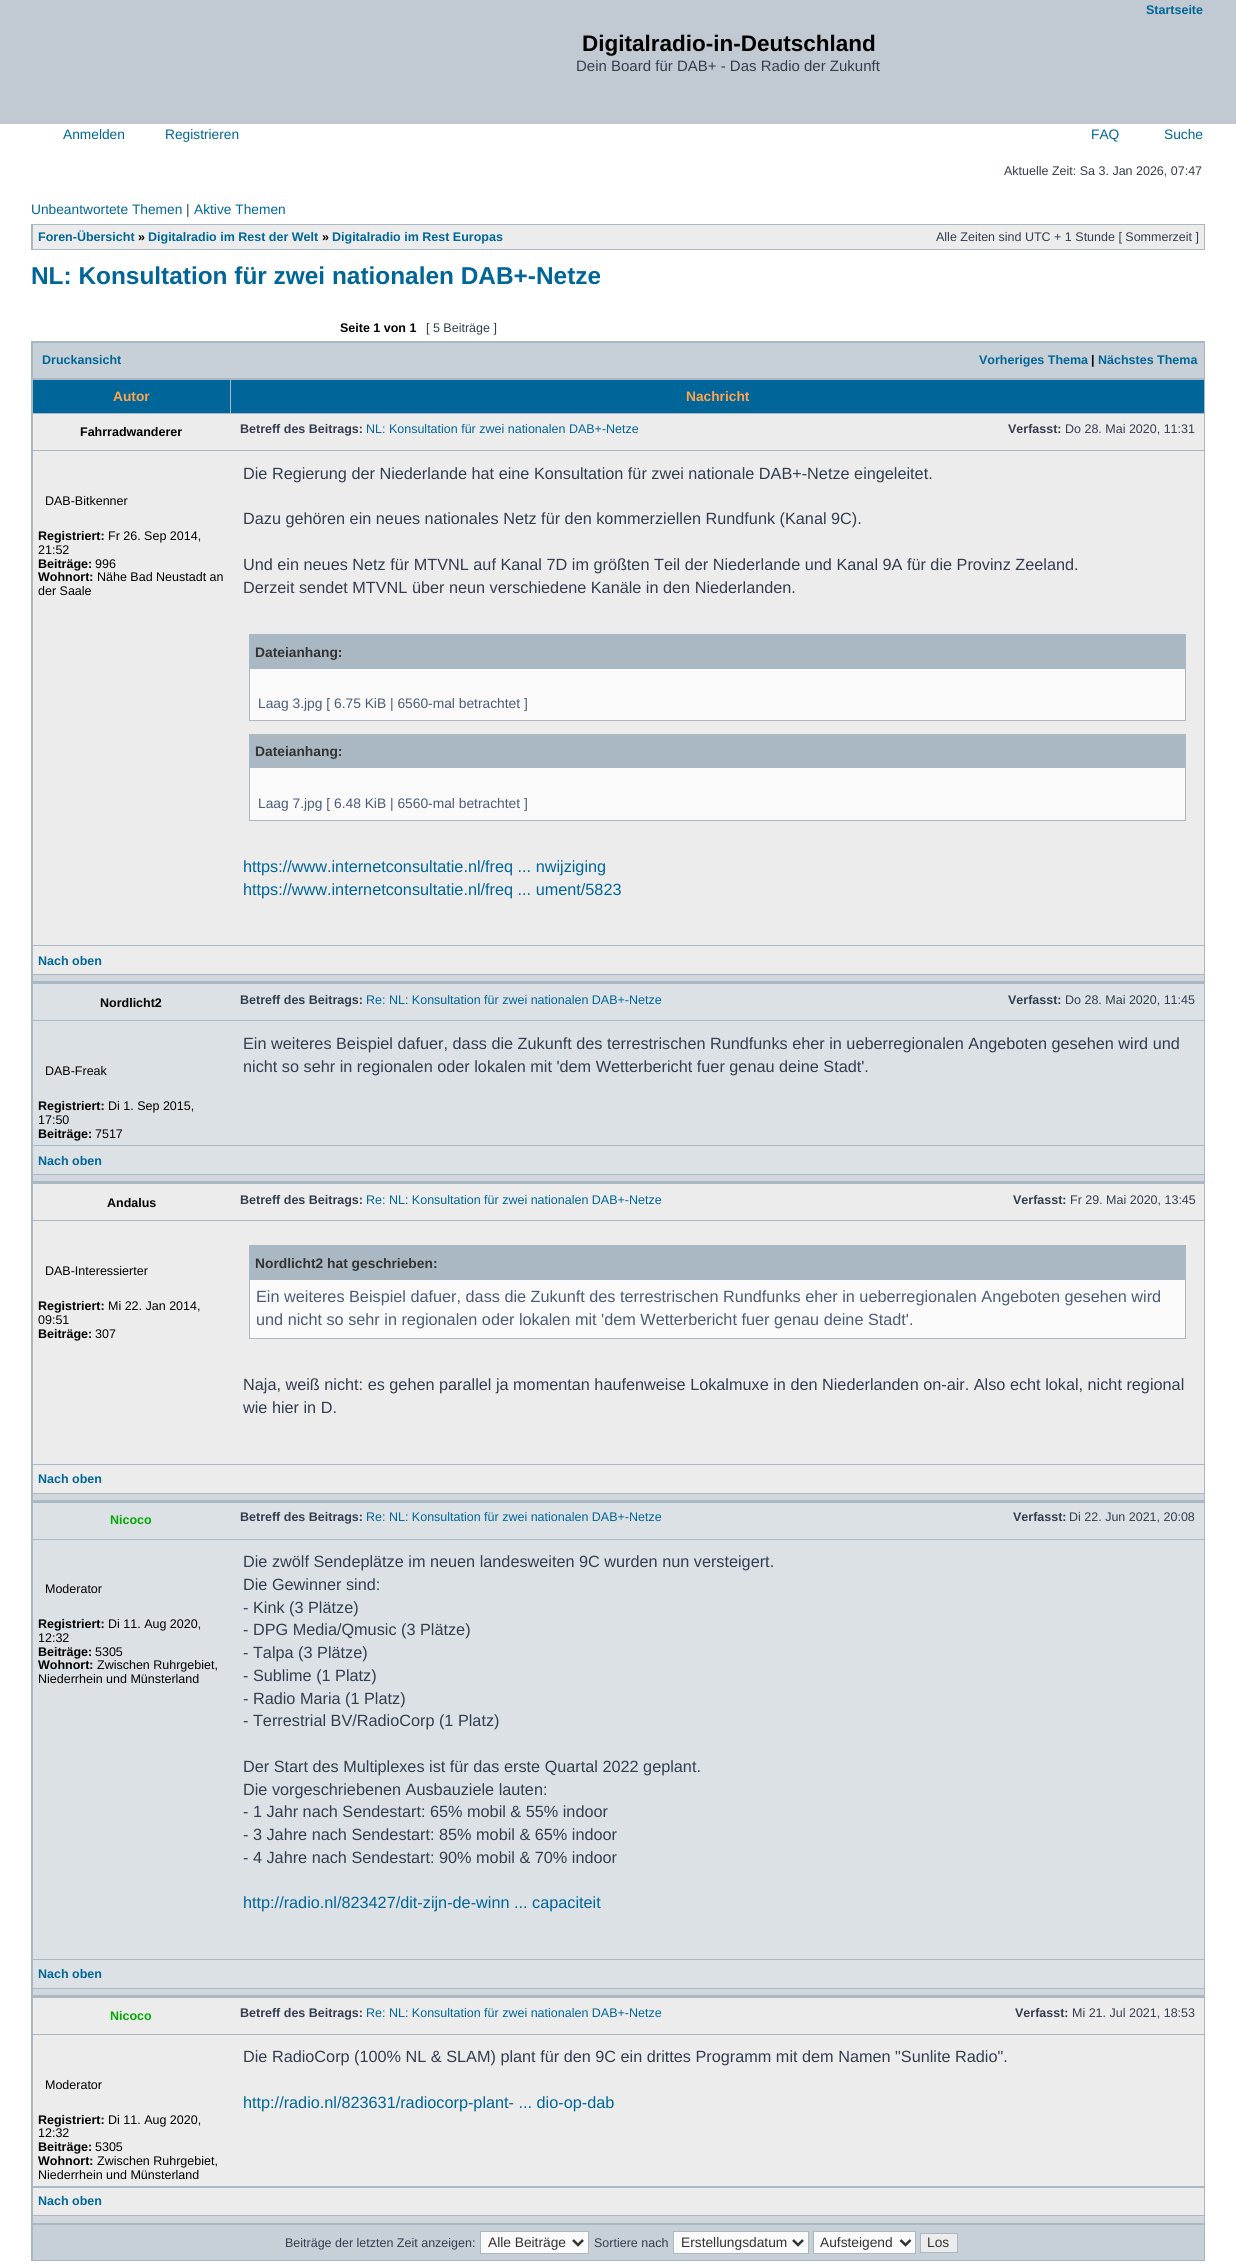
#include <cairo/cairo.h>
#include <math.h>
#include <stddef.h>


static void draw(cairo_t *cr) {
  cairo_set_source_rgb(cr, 1, 1, 1);
  cairo_paint(cr);
  cairo_set_source_rgb(cr, 193 / 255.0, 202 / 255.0, 210 / 255.0);
  cairo_rectangle(cr, 0, 0, 1236, 124);
  cairo_fill(cr);
  cairo_set_source_rgb(cr, 169 / 255.0, 184 / 255.0, 194 / 255.0);
  cairo_rectangle(cr, 31, 224, 1174, 26);
  cairo_fill(cr);
  cairo_set_source_rgb(cr, 236 / 255.0, 236 / 255.0, 236 / 255.0);
  cairo_rectangle(cr, 33, 225, 1171, 24);
  cairo_fill(cr);
  cairo_set_source_rgb(cr, 169 / 255.0, 184 / 255.0, 194 / 255.0);
  cairo_rectangle(cr, 31, 341, 1174, 1920);
  cairo_fill(cr);
  cairo_set_source_rgb(cr, 199 / 255.0, 208 / 255.0, 215 / 255.0);
  cairo_rectangle(cr, 33, 343, 1171, 35);
  cairo_fill(cr);
  cairo_set_source_rgb(cr, 0, 102 / 255.0, 153 / 255.0);
  cairo_rectangle(cr, 33, 380, 197, 33);
  cairo_fill(cr);
  cairo_rectangle(cr, 231, 380, 973, 33);
  cairo_fill(cr);
  cairo_set_source_rgb(cr, 236 / 255.0, 236 / 255.0, 236 / 255.0);
  cairo_rectangle(cr, 33, 414, 1171, 36);
  cairo_fill(cr);
  cairo_rectangle(cr, 33, 451, 1171, 494);
  cairo_fill(cr);
  cairo_set_source_rgb(cr, 169 / 255.0, 184 / 255.0, 194 / 255.0);
  cairo_rectangle(cr, 250, 635, 935, 34);
  cairo_fill(cr);
  cairo_rectangle(cr, 249, 634, 937, 1);
  cairo_fill(cr);
  cairo_rectangle(cr, 1185, 634, 1, 87);
  cairo_fill(cr);
  cairo_rectangle(cr, 249, 634, 1, 35);
  cairo_fill(cr);
  cairo_set_source_rgb(cr, 250 / 255.0, 250 / 255.0, 250 / 255.0);
  cairo_rectangle(cr, 250, 669, 935, 51);
  cairo_fill(cr);
  cairo_set_source_rgb(cr, 169 / 255.0, 184 / 255.0, 194 / 255.0);
  cairo_rectangle(cr, 249, 720, 937, 1);
  cairo_fill(cr);
  cairo_rectangle(cr, 249, 669, 1, 52);
  cairo_fill(cr);
  cairo_rectangle(cr, 250, 735, 935, 33);
  cairo_fill(cr);
  cairo_rectangle(cr, 249, 734, 937, 1);
  cairo_fill(cr);
  cairo_rectangle(cr, 1185, 734, 1, 87);
  cairo_fill(cr);
  cairo_rectangle(cr, 249, 734, 1, 34);
  cairo_fill(cr);
  cairo_set_source_rgb(cr, 250 / 255.0, 250 / 255.0, 250 / 255.0);
  cairo_rectangle(cr, 250, 768, 935, 52);
  cairo_fill(cr);
  cairo_set_source_rgb(cr, 169 / 255.0, 184 / 255.0, 194 / 255.0);
  cairo_rectangle(cr, 249, 820, 937, 1);
  cairo_fill(cr);
  cairo_rectangle(cr, 249, 768, 1, 53);
  cairo_fill(cr);
  cairo_set_source_rgb(cr, 236 / 255.0, 236 / 255.0, 236 / 255.0);
  cairo_rectangle(cr, 33, 946, 1171, 28);
  cairo_fill(cr);
  cairo_set_source_rgb(cr, 209 / 255.0, 215 / 255.0, 220 / 255.0);
  cairo_rectangle(cr, 33, 975, 1171, 6);
  cairo_fill(cr);
  cairo_set_source_rgb(cr, 220 / 255.0, 225 / 255.0, 229 / 255.0);
  cairo_rectangle(cr, 33, 984, 1171, 36);
  cairo_fill(cr);
  cairo_rectangle(cr, 33, 1021, 1171, 124);
  cairo_fill(cr);
  cairo_rectangle(cr, 33, 1146, 1171, 28);
  cairo_fill(cr);
  cairo_set_source_rgb(cr, 209 / 255.0, 215 / 255.0, 220 / 255.0);
  cairo_rectangle(cr, 33, 1175, 1171, 6);
  cairo_fill(cr);
  cairo_set_source_rgb(cr, 236 / 255.0, 236 / 255.0, 236 / 255.0);
  cairo_rectangle(cr, 33, 1184, 1171, 36);
  cairo_fill(cr);
  cairo_rectangle(cr, 33, 1221, 1171, 243);
  cairo_fill(cr);
  cairo_set_source_rgb(cr, 169 / 255.0, 184 / 255.0, 194 / 255.0);
  cairo_rectangle(cr, 250, 1246, 935, 34);
  cairo_fill(cr);
  cairo_rectangle(cr, 249, 1245, 937, 1);
  cairo_fill(cr);
  cairo_rectangle(cr, 1185, 1245, 1, 94);
  cairo_fill(cr);
  cairo_rectangle(cr, 249, 1245, 1, 35);
  cairo_fill(cr);
  cairo_set_source_rgb(cr, 250 / 255.0, 250 / 255.0, 250 / 255.0);
  cairo_rectangle(cr, 250, 1280, 935, 58);
  cairo_fill(cr);
  cairo_set_source_rgb(cr, 169 / 255.0, 184 / 255.0, 194 / 255.0);
  cairo_rectangle(cr, 249, 1338, 937, 1);
  cairo_fill(cr);
  cairo_rectangle(cr, 249, 1280, 1, 59);
  cairo_fill(cr);
  cairo_set_source_rgb(cr, 236 / 255.0, 236 / 255.0, 236 / 255.0);
  cairo_rectangle(cr, 33, 1465, 1171, 28);
  cairo_fill(cr);
  cairo_set_source_rgb(cr, 209 / 255.0, 215 / 255.0, 220 / 255.0);
  cairo_rectangle(cr, 33, 1494, 1171, 6);
  cairo_fill(cr);
  cairo_set_source_rgb(cr, 220 / 255.0, 225 / 255.0, 229 / 255.0);
  cairo_rectangle(cr, 33, 1503, 1171, 36);
  cairo_fill(cr);
  cairo_rectangle(cr, 33, 1540, 1171, 419);
  cairo_fill(cr);
  cairo_rectangle(cr, 33, 1960, 1171, 28);
  cairo_fill(cr);
  cairo_set_source_rgb(cr, 209 / 255.0, 215 / 255.0, 220 / 255.0);
  cairo_rectangle(cr, 33, 1989, 1171, 6);
  cairo_fill(cr);
  cairo_set_source_rgb(cr, 236 / 255.0, 236 / 255.0, 236 / 255.0);
  cairo_rectangle(cr, 33, 1998, 1171, 36);
  cairo_fill(cr);
  cairo_rectangle(cr, 33, 2035, 1171, 151);
  cairo_fill(cr);
  cairo_rectangle(cr, 33, 2188, 1171, 27);
  cairo_fill(cr);
  cairo_set_source_rgb(cr, 209 / 255.0, 215 / 255.0, 220 / 255.0);
  cairo_rectangle(cr, 33, 2216, 1171, 7);
  cairo_fill(cr);
  cairo_set_source_rgb(cr, 199 / 255.0, 208 / 255.0, 215 / 255.0);
  cairo_rectangle(cr, 33, 2225, 1171, 35);
  cairo_fill(cr);
  cairo_set_source_rgb(cr, 250 / 255.0, 250 / 255.0, 250 / 255.0);
  cairo_rectangle(cr, 480.5, 2231.5, 108, 22);
  cairo_fill_preserve(cr);
  cairo_set_source_rgb(cr, 169 / 255.0, 184 / 255.0, 194 / 255.0);
  cairo_set_line_width(cr, 1);
  cairo_stroke(cr);
  cairo_new_path(cr);
  cairo_move_to(cr, 573, 2240);
  cairo_line_to(cr, 578, 2245);
  cairo_line_to(cr, 583, 2240);
  cairo_set_source_rgb(cr, 51 / 255.0, 51 / 255.0, 51 / 255.0);
  cairo_set_line_width(cr, 2.5);
  cairo_stroke(cr);
  cairo_set_source_rgb(cr, 250 / 255.0, 250 / 255.0, 250 / 255.0);
  cairo_rectangle(cr, 673.5, 2231.5, 135, 22);
  cairo_fill_preserve(cr);
  cairo_set_source_rgb(cr, 169 / 255.0, 184 / 255.0, 194 / 255.0);
  cairo_set_line_width(cr, 1);
  cairo_stroke(cr);
  cairo_new_path(cr);
  cairo_move_to(cr, 793, 2240);
  cairo_line_to(cr, 798, 2245);
  cairo_line_to(cr, 803, 2240);
  cairo_set_source_rgb(cr, 51 / 255.0, 51 / 255.0, 51 / 255.0);
  cairo_set_line_width(cr, 2.5);
  cairo_stroke(cr);
  cairo_set_source_rgb(cr, 250 / 255.0, 250 / 255.0, 250 / 255.0);
  cairo_rectangle(cr, 813.5, 2231.5, 102, 22);
  cairo_fill_preserve(cr);
  cairo_set_source_rgb(cr, 169 / 255.0, 184 / 255.0, 194 / 255.0);
  cairo_set_line_width(cr, 1);
  cairo_stroke(cr);
  cairo_new_path(cr);
  cairo_move_to(cr, 900.5, 2240);
  cairo_line_to(cr, 905.5, 2245);
  cairo_line_to(cr, 910.5, 2240);
  cairo_set_source_rgb(cr, 51 / 255.0, 51 / 255.0, 51 / 255.0);
  cairo_set_line_width(cr, 2.5);
  cairo_stroke(cr);
  cairo_set_source_rgb(cr, 236 / 255.0, 236 / 255.0, 236 / 255.0);
  cairo_rectangle(cr, 920.5, 2233.5, 37, 19);
  cairo_fill_preserve(cr);
  cairo_set_source_rgb(cr, 169 / 255.0, 184 / 255.0, 194 / 255.0);
  cairo_set_line_width(cr, 1);
  cairo_stroke(cr);
  cairo_select_font_face(cr, "Liberation Sans", CAIRO_FONT_SLANT_NORMAL, CAIRO_FONT_WEIGHT_BOLD);
  cairo_set_font_size(cr, 12.5);
  cairo_set_source_rgb(cr, 0, 101 / 255.0, 151 / 255.0);
  cairo_move_to(cr, 1146, 14);
  cairo_show_text(cr, "Startseite");
  cairo_set_font_size(cr, 22.5);
  cairo_set_source_rgb(cr, 0, 0, 0);
  cairo_move_to(cr, 582, 51);
  cairo_show_text(cr, "Digitalradio-in-Deutschland");
  cairo_select_font_face(cr, "Liberation Sans", CAIRO_FONT_SLANT_NORMAL, CAIRO_FONT_WEIGHT_NORMAL);
  cairo_set_font_size(cr, 15);
  cairo_set_source_rgb(cr, 50 / 255.0, 61 / 255.0, 79 / 255.0);
  cairo_move_to(cr, 576, 71);
  cairo_show_text(cr, "Dein Board für DAB+ - Das Radio der Zukunft");
  cairo_set_font_size(cr, 13.75);
  cairo_set_source_rgb(cr, 0, 101 / 255.0, 151 / 255.0);
  cairo_move_to(cr, 63, 139);
  cairo_show_text(cr, "Anmelden");
  cairo_move_to(cr, 165, 139);
  cairo_show_text(cr, "Registrieren");
  cairo_move_to(cr, 1091, 139);
  cairo_show_text(cr, "FAQ");
  cairo_move_to(cr, 1164, 139);
  cairo_show_text(cr, "Suche");
  cairo_set_font_size(cr, 12.5);
  cairo_set_source_rgb(cr, 50 / 255.0, 61 / 255.0, 79 / 255.0);
  cairo_move_to(cr, 1004, 175);
  cairo_show_text(cr, "Aktuelle Zeit: Sa 3. Jan 2026, 07:47");
  cairo_set_font_size(cr, 13.75);
  cairo_set_source_rgb(cr, 0, 101 / 255.0, 151 / 255.0);
  cairo_move_to(cr, 31, 214);
  cairo_show_text(cr, "Unbeantwortete Themen");
  cairo_set_source_rgb(cr, 50 / 255.0, 61 / 255.0, 79 / 255.0);
  cairo_move_to(cr, 186, 214);
  cairo_show_text(cr, "|");
  cairo_set_source_rgb(cr, 0, 101 / 255.0, 151 / 255.0);
  cairo_move_to(cr, 194, 214);
  cairo_show_text(cr, "Aktive Themen");
  cairo_select_font_face(cr, "Liberation Sans", CAIRO_FONT_SLANT_NORMAL, CAIRO_FONT_WEIGHT_BOLD);
  cairo_set_font_size(cr, 12.5);
  cairo_move_to(cr, 38, 241);
  cairo_show_text(cr, "Foren-Übersicht");
  cairo_set_source_rgb(cr, 0, 0, 0);
  cairo_move_to(cr, 138, 241);
  cairo_show_text(cr, "»");
  cairo_set_source_rgb(cr, 0, 101 / 255.0, 151 / 255.0);
  cairo_move_to(cr, 148, 241);
  cairo_show_text(cr, "Digitalradio im Rest der Welt");
  cairo_set_source_rgb(cr, 0, 0, 0);
  cairo_move_to(cr, 322, 241);
  cairo_show_text(cr, "»");
  cairo_set_source_rgb(cr, 0, 101 / 255.0, 151 / 255.0);
  cairo_move_to(cr, 332, 241);
  cairo_show_text(cr, "Digitalradio im Rest Europas");
  cairo_select_font_face(cr, "Liberation Sans", CAIRO_FONT_SLANT_NORMAL, CAIRO_FONT_WEIGHT_NORMAL);
  cairo_set_source_rgb(cr, 50 / 255.0, 61 / 255.0, 79 / 255.0);
  cairo_move_to(cr, 936, 241);
  cairo_show_text(cr, "Alle Zeiten sind UTC + 1 Stunde [ Sommerzeit ]");
  cairo_select_font_face(cr, "Liberation Sans", CAIRO_FONT_SLANT_NORMAL, CAIRO_FONT_WEIGHT_BOLD);
  cairo_set_font_size(cr, 24.4);
  cairo_set_source_rgb(cr, 0, 101 / 255.0, 151 / 255.0);
  cairo_move_to(cr, 31, 284);
  cairo_show_text(cr, "NL: Konsultation für zwei nationalen DAB+-Netze");
  cairo_set_font_size(cr, 12.5);
  cairo_set_source_rgb(cr, 0, 0, 0);
  cairo_move_to(cr, 340, 332);
  cairo_show_text(cr, "Seite 1 von 1");
  cairo_select_font_face(cr, "Liberation Sans", CAIRO_FONT_SLANT_NORMAL, CAIRO_FONT_WEIGHT_NORMAL);
  cairo_set_source_rgb(cr, 50 / 255.0, 61 / 255.0, 79 / 255.0);
  cairo_move_to(cr, 426, 332);
  cairo_show_text(cr, "[ 5 Beiträge ]");
  cairo_select_font_face(cr, "Liberation Sans", CAIRO_FONT_SLANT_NORMAL, CAIRO_FONT_WEIGHT_BOLD);
  cairo_set_source_rgb(cr, 0, 101 / 255.0, 151 / 255.0);
  cairo_move_to(cr, 42, 364);
  cairo_show_text(cr, "Druckansicht");
  cairo_move_to(cr, 979, 364);
  cairo_show_text(cr, "Vorheriges Thema");
  cairo_set_source_rgb(cr, 0, 0, 0);
  cairo_move_to(cr, 1091, 364);
  cairo_show_text(cr, "|");
  cairo_set_source_rgb(cr, 0, 101 / 255.0, 151 / 255.0);
  cairo_move_to(cr, 1098, 364);
  cairo_show_text(cr, "Nächstes Thema");
  cairo_set_font_size(cr, 13.75);
  cairo_set_source_rgb(cr, 1, 163 / 255.0, 79 / 255.0);
  cairo_move_to(cr, 113, 401);
  cairo_show_text(cr, "Autor");
  cairo_move_to(cr, 686, 401);
  cairo_show_text(cr, "Nachricht");
  cairo_set_font_size(cr, 12.5);
  cairo_set_source_rgb(cr, 0, 0, 0);
  cairo_move_to(cr, 80, 436);
  cairo_show_text(cr, "Fahrradwanderer");
  cairo_set_source_rgb(cr, 50 / 255.0, 61 / 255.0, 79 / 255.0);
  cairo_move_to(cr, 240, 433);
  cairo_show_text(cr, "Betreff des Beitrags:");
  cairo_select_font_face(cr, "Liberation Sans", CAIRO_FONT_SLANT_NORMAL, CAIRO_FONT_WEIGHT_NORMAL);
  cairo_set_source_rgb(cr, 0, 101 / 255.0, 151 / 255.0);
  cairo_move_to(cr, 366, 433);
  cairo_show_text(cr, "NL: Konsultation für zwei nationalen DAB+-Netze");
  cairo_select_font_face(cr, "Liberation Sans", CAIRO_FONT_SLANT_NORMAL, CAIRO_FONT_WEIGHT_BOLD);
  cairo_set_source_rgb(cr, 50 / 255.0, 61 / 255.0, 79 / 255.0);
  cairo_move_to(cr, 1008, 433);
  cairo_show_text(cr, "Verfasst:");
  cairo_select_font_face(cr, "Liberation Sans", CAIRO_FONT_SLANT_NORMAL, CAIRO_FONT_WEIGHT_NORMAL);
  cairo_move_to(cr, 1065, 433);
  cairo_show_text(cr, "Do 28. Mai 2020, 11:31");
  cairo_set_source_rgb(cr, 0, 0, 0);
  cairo_move_to(cr, 45, 505);
  cairo_show_text(cr, "DAB-Bitkenner");
  cairo_select_font_face(cr, "Liberation Sans", CAIRO_FONT_SLANT_NORMAL, CAIRO_FONT_WEIGHT_BOLD);
  cairo_move_to(cr, 38, 540);
  cairo_show_text(cr, "Registriert:");
  cairo_select_font_face(cr, "Liberation Sans", CAIRO_FONT_SLANT_NORMAL, CAIRO_FONT_WEIGHT_NORMAL);
  cairo_move_to(cr, 108, 540);
  cairo_show_text(cr, "Fr 26. Sep 2014,");
  cairo_move_to(cr, 38, 554);
  cairo_show_text(cr, "21:52");
  cairo_select_font_face(cr, "Liberation Sans", CAIRO_FONT_SLANT_NORMAL, CAIRO_FONT_WEIGHT_BOLD);
  cairo_move_to(cr, 38, 568);
  cairo_show_text(cr, "Beiträge:");
  cairo_select_font_face(cr, "Liberation Sans", CAIRO_FONT_SLANT_NORMAL, CAIRO_FONT_WEIGHT_NORMAL);
  cairo_move_to(cr, 95, 568);
  cairo_show_text(cr, "996");
  cairo_select_font_face(cr, "Liberation Sans", CAIRO_FONT_SLANT_NORMAL, CAIRO_FONT_WEIGHT_BOLD);
  cairo_move_to(cr, 38, 581);
  cairo_show_text(cr, "Wohnort:");
  cairo_select_font_face(cr, "Liberation Sans", CAIRO_FONT_SLANT_NORMAL, CAIRO_FONT_WEIGHT_NORMAL);
  cairo_move_to(cr, 97, 581);
  cairo_show_text(cr, "Nähe Bad Neustadt an");
  cairo_move_to(cr, 38, 595);
  cairo_show_text(cr, "der Saale");
  cairo_set_font_size(cr, 16.25);
  cairo_set_source_rgb(cr, 50 / 255.0, 61 / 255.0, 79 / 255.0);
  cairo_move_to(cr, 243, 479);
  cairo_show_text(cr, "Die Regierung der Niederlande hat eine Konsultation für zwei nationale DAB+-Netze eingeleitet.");
  cairo_move_to(cr, 243, 524);
  cairo_show_text(cr, "Dazu gehören ein neues nationales Netz für den kommerziellen Rundfunk (Kanal 9C).");
  cairo_move_to(cr, 243, 570);
  cairo_show_text(cr, "Und ein neues Netz für MTVNL auf Kanal 7D im größten Teil der Niederlande und Kanal 9A für die Provinz Zeeland.");
  cairo_move_to(cr, 243, 593);
  cairo_show_text(cr, "Derzeit sendet MTVNL über neun verschiedene Kanäle in den Niederlanden.");
  cairo_select_font_face(cr, "Liberation Sans", CAIRO_FONT_SLANT_NORMAL, CAIRO_FONT_WEIGHT_BOLD);
  cairo_set_font_size(cr, 13.8);
  cairo_set_source_rgb(cr, 51 / 255.0, 51 / 255.0, 51 / 255.0);
  cairo_move_to(cr, 255, 657);
  cairo_show_text(cr, "Dateianhang:");
  cairo_select_font_face(cr, "Liberation Sans", CAIRO_FONT_SLANT_NORMAL, CAIRO_FONT_WEIGHT_NORMAL);
  cairo_set_source_rgb(cr, 75 / 255.0, 92 / 255.0, 119 / 255.0);
  cairo_move_to(cr, 258, 708);
  cairo_show_text(cr, "Laag 3.jpg [ 6.75 KiB | 6560-mal betrachtet ]");
  cairo_select_font_face(cr, "Liberation Sans", CAIRO_FONT_SLANT_NORMAL, CAIRO_FONT_WEIGHT_BOLD);
  cairo_set_source_rgb(cr, 51 / 255.0, 51 / 255.0, 51 / 255.0);
  cairo_move_to(cr, 255, 756);
  cairo_show_text(cr, "Dateianhang:");
  cairo_select_font_face(cr, "Liberation Sans", CAIRO_FONT_SLANT_NORMAL, CAIRO_FONT_WEIGHT_NORMAL);
  cairo_set_source_rgb(cr, 75 / 255.0, 92 / 255.0, 119 / 255.0);
  cairo_move_to(cr, 258, 808);
  cairo_show_text(cr, "Laag 7.jpg [ 6.48 KiB | 6560-mal betrachtet ]");
  cairo_set_font_size(cr, 16.25);
  cairo_set_source_rgb(cr, 0, 101 / 255.0, 151 / 255.0);
  cairo_move_to(cr, 243, 872);
  cairo_show_text(cr, "https://www.internetconsultatie.nl/freq ... nwijziging");
  cairo_move_to(cr, 243, 895);
  cairo_show_text(cr, "https://www.internetconsultatie.nl/freq ... ument/5823");
  cairo_select_font_face(cr, "Liberation Sans", CAIRO_FONT_SLANT_NORMAL, CAIRO_FONT_WEIGHT_BOLD);
  cairo_set_font_size(cr, 12.5);
  cairo_move_to(cr, 38, 965);
  cairo_show_text(cr, "Nach oben");
  cairo_set_source_rgb(cr, 0, 0, 0);
  cairo_move_to(cr, 100, 1007);
  cairo_show_text(cr, "Nordlicht2");
  cairo_set_source_rgb(cr, 50 / 255.0, 61 / 255.0, 79 / 255.0);
  cairo_move_to(cr, 240, 1004);
  cairo_show_text(cr, "Betreff des Beitrags:");
  cairo_select_font_face(cr, "Liberation Sans", CAIRO_FONT_SLANT_NORMAL, CAIRO_FONT_WEIGHT_NORMAL);
  cairo_set_source_rgb(cr, 0, 101 / 255.0, 151 / 255.0);
  cairo_move_to(cr, 366, 1004);
  cairo_show_text(cr, "Re: NL: Konsultation für zwei nationalen DAB+-Netze");
  cairo_select_font_face(cr, "Liberation Sans", CAIRO_FONT_SLANT_NORMAL, CAIRO_FONT_WEIGHT_BOLD);
  cairo_set_source_rgb(cr, 50 / 255.0, 61 / 255.0, 79 / 255.0);
  cairo_move_to(cr, 1008, 1004);
  cairo_show_text(cr, "Verfasst:");
  cairo_select_font_face(cr, "Liberation Sans", CAIRO_FONT_SLANT_NORMAL, CAIRO_FONT_WEIGHT_NORMAL);
  cairo_move_to(cr, 1065, 1004);
  cairo_show_text(cr, "Do 28. Mai 2020, 11:45");
  cairo_set_font_size(cr, 16.25);
  cairo_move_to(cr, 243, 1049);
  cairo_show_text(cr, "Ein weiteres Beispiel dafuer, dass die Zukunft des terrestrischen Rundfunks eher in ueberregionalen Angeboten gesehen wird und");
  cairo_move_to(cr, 243, 1072);
  cairo_show_text(cr, "nicht so sehr in regionalen oder lokalen mit 'dem Wetterbericht fuer genau deine Stadt'.");
  cairo_set_font_size(cr, 12.5);
  cairo_set_source_rgb(cr, 0, 0, 0);
  cairo_move_to(cr, 45, 1075);
  cairo_show_text(cr, "DAB-Freak");
  cairo_select_font_face(cr, "Liberation Sans", CAIRO_FONT_SLANT_NORMAL, CAIRO_FONT_WEIGHT_BOLD);
  cairo_move_to(cr, 38, 1110);
  cairo_show_text(cr, "Registriert:");
  cairo_select_font_face(cr, "Liberation Sans", CAIRO_FONT_SLANT_NORMAL, CAIRO_FONT_WEIGHT_NORMAL);
  cairo_move_to(cr, 108, 1110);
  cairo_show_text(cr, "Di 1. Sep 2015,");
  cairo_move_to(cr, 38, 1124);
  cairo_show_text(cr, "17:50");
  cairo_select_font_face(cr, "Liberation Sans", CAIRO_FONT_SLANT_NORMAL, CAIRO_FONT_WEIGHT_BOLD);
  cairo_move_to(cr, 38, 1138);
  cairo_show_text(cr, "Beiträge:");
  cairo_select_font_face(cr, "Liberation Sans", CAIRO_FONT_SLANT_NORMAL, CAIRO_FONT_WEIGHT_NORMAL);
  cairo_move_to(cr, 95, 1138);
  cairo_show_text(cr, "7517");
  cairo_select_font_face(cr, "Liberation Sans", CAIRO_FONT_SLANT_NORMAL, CAIRO_FONT_WEIGHT_BOLD);
  cairo_set_source_rgb(cr, 0, 101 / 255.0, 151 / 255.0);
  cairo_move_to(cr, 38, 1165);
  cairo_show_text(cr, "Nach oben");
  cairo_set_source_rgb(cr, 0, 0, 0);
  cairo_move_to(cr, 107, 1207);
  cairo_show_text(cr, "Andalus");
  cairo_set_source_rgb(cr, 50 / 255.0, 61 / 255.0, 79 / 255.0);
  cairo_move_to(cr, 240, 1204);
  cairo_show_text(cr, "Betreff des Beitrags:");
  cairo_select_font_face(cr, "Liberation Sans", CAIRO_FONT_SLANT_NORMAL, CAIRO_FONT_WEIGHT_NORMAL);
  cairo_set_source_rgb(cr, 0, 101 / 255.0, 151 / 255.0);
  cairo_move_to(cr, 366, 1204);
  cairo_show_text(cr, "Re: NL: Konsultation für zwei nationalen DAB+-Netze");
  cairo_select_font_face(cr, "Liberation Sans", CAIRO_FONT_SLANT_NORMAL, CAIRO_FONT_WEIGHT_BOLD);
  cairo_set_source_rgb(cr, 50 / 255.0, 61 / 255.0, 79 / 255.0);
  cairo_move_to(cr, 1013, 1204);
  cairo_show_text(cr, "Verfasst:");
  cairo_select_font_face(cr, "Liberation Sans", CAIRO_FONT_SLANT_NORMAL, CAIRO_FONT_WEIGHT_NORMAL);
  cairo_move_to(cr, 1070, 1204);
  cairo_show_text(cr, "Fr 29. Mai 2020, 13:45");
  cairo_set_source_rgb(cr, 0, 0, 0);
  cairo_move_to(cr, 45, 1275);
  cairo_show_text(cr, "DAB-Interessierter");
  cairo_select_font_face(cr, "Liberation Sans", CAIRO_FONT_SLANT_NORMAL, CAIRO_FONT_WEIGHT_BOLD);
  cairo_move_to(cr, 38, 1310);
  cairo_show_text(cr, "Registriert:");
  cairo_select_font_face(cr, "Liberation Sans", CAIRO_FONT_SLANT_NORMAL, CAIRO_FONT_WEIGHT_NORMAL);
  cairo_move_to(cr, 108, 1310);
  cairo_show_text(cr, "Mi 22. Jan 2014,");
  cairo_move_to(cr, 38, 1324);
  cairo_show_text(cr, "09:51");
  cairo_select_font_face(cr, "Liberation Sans", CAIRO_FONT_SLANT_NORMAL, CAIRO_FONT_WEIGHT_BOLD);
  cairo_move_to(cr, 38, 1338);
  cairo_show_text(cr, "Beiträge:");
  cairo_select_font_face(cr, "Liberation Sans", CAIRO_FONT_SLANT_NORMAL, CAIRO_FONT_WEIGHT_NORMAL);
  cairo_move_to(cr, 95, 1338);
  cairo_show_text(cr, "307");
  cairo_select_font_face(cr, "Liberation Sans", CAIRO_FONT_SLANT_NORMAL, CAIRO_FONT_WEIGHT_BOLD);
  cairo_set_font_size(cr, 13.8);
  cairo_set_source_rgb(cr, 51 / 255.0, 51 / 255.0, 51 / 255.0);
  cairo_move_to(cr, 255, 1268);
  cairo_show_text(cr, "Nordlicht2 hat geschrieben:");
  cairo_select_font_face(cr, "Liberation Sans", CAIRO_FONT_SLANT_NORMAL, CAIRO_FONT_WEIGHT_NORMAL);
  cairo_set_font_size(cr, 16.25);
  cairo_set_source_rgb(cr, 75 / 255.0, 92 / 255.0, 119 / 255.0);
  cairo_move_to(cr, 256, 1302);
  cairo_show_text(cr, "Ein weiteres Beispiel dafuer, dass die Zukunft des terrestrischen Rundfunks eher in ueberregionalen Angeboten gesehen wird");
  cairo_move_to(cr, 256, 1325);
  cairo_show_text(cr, "und nicht so sehr in regionalen oder lokalen mit 'dem Wetterbericht fuer genau deine Stadt'.");
  cairo_set_source_rgb(cr, 50 / 255.0, 61 / 255.0, 79 / 255.0);
  cairo_move_to(cr, 243, 1390);
  cairo_show_text(cr, "Naja, weiß nicht: es gehen parallel ja momentan haufenweise Lokalmuxe in den Niederlanden on-air. Also echt lokal, nicht regional");
  cairo_move_to(cr, 243, 1413);
  cairo_show_text(cr, "wie hier in D.");
  cairo_select_font_face(cr, "Liberation Sans", CAIRO_FONT_SLANT_NORMAL, CAIRO_FONT_WEIGHT_BOLD);
  cairo_set_font_size(cr, 12.5);
  cairo_set_source_rgb(cr, 0, 101 / 255.0, 151 / 255.0);
  cairo_move_to(cr, 38, 1483);
  cairo_show_text(cr, "Nach oben");
  cairo_set_source_rgb(cr, 0, 170 / 255.0, 0);
  cairo_move_to(cr, 110, 1524);
  cairo_show_text(cr, "Nicoco");
  cairo_set_source_rgb(cr, 50 / 255.0, 61 / 255.0, 79 / 255.0);
  cairo_move_to(cr, 240, 1521);
  cairo_show_text(cr, "Betreff des Beitrags:");
  cairo_select_font_face(cr, "Liberation Sans", CAIRO_FONT_SLANT_NORMAL, CAIRO_FONT_WEIGHT_NORMAL);
  cairo_set_source_rgb(cr, 0, 101 / 255.0, 151 / 255.0);
  cairo_move_to(cr, 366, 1521);
  cairo_show_text(cr, "Re: NL: Konsultation für zwei nationalen DAB+-Netze");
  cairo_select_font_face(cr, "Liberation Sans", CAIRO_FONT_SLANT_NORMAL, CAIRO_FONT_WEIGHT_BOLD);
  cairo_set_source_rgb(cr, 50 / 255.0, 61 / 255.0, 79 / 255.0);
  cairo_move_to(cr, 1013, 1521);
  cairo_show_text(cr, "Verfasst:");
  cairo_select_font_face(cr, "Liberation Sans", CAIRO_FONT_SLANT_NORMAL, CAIRO_FONT_WEIGHT_NORMAL);
  cairo_move_to(cr, 1069, 1521);
  cairo_show_text(cr, "Di 22. Jun 2021, 20:08");
  cairo_set_source_rgb(cr, 0, 0, 0);
  cairo_move_to(cr, 45, 1593);
  cairo_show_text(cr, "Moderator");
  cairo_select_font_face(cr, "Liberation Sans", CAIRO_FONT_SLANT_NORMAL, CAIRO_FONT_WEIGHT_BOLD);
  cairo_move_to(cr, 38, 1628);
  cairo_show_text(cr, "Registriert:");
  cairo_select_font_face(cr, "Liberation Sans", CAIRO_FONT_SLANT_NORMAL, CAIRO_FONT_WEIGHT_NORMAL);
  cairo_move_to(cr, 108, 1628);
  cairo_show_text(cr, "Di 11. Aug 2020,");
  cairo_move_to(cr, 38, 1642);
  cairo_show_text(cr, "12:32");
  cairo_select_font_face(cr, "Liberation Sans", CAIRO_FONT_SLANT_NORMAL, CAIRO_FONT_WEIGHT_BOLD);
  cairo_move_to(cr, 38, 1656);
  cairo_show_text(cr, "Beiträge:");
  cairo_select_font_face(cr, "Liberation Sans", CAIRO_FONT_SLANT_NORMAL, CAIRO_FONT_WEIGHT_NORMAL);
  cairo_move_to(cr, 95, 1656);
  cairo_show_text(cr, "5305");
  cairo_select_font_face(cr, "Liberation Sans", CAIRO_FONT_SLANT_NORMAL, CAIRO_FONT_WEIGHT_BOLD);
  cairo_move_to(cr, 38, 1669);
  cairo_show_text(cr, "Wohnort:");
  cairo_select_font_face(cr, "Liberation Sans", CAIRO_FONT_SLANT_NORMAL, CAIRO_FONT_WEIGHT_NORMAL);
  cairo_move_to(cr, 97, 1669);
  cairo_show_text(cr, "Zwischen Ruhrgebiet,");
  cairo_move_to(cr, 38, 1683);
  cairo_show_text(cr, "Niederrhein und Münsterland");
  cairo_set_font_size(cr, 16.25);
  cairo_set_source_rgb(cr, 50 / 255.0, 61 / 255.0, 79 / 255.0);
  cairo_move_to(cr, 243, 1567);
  cairo_show_text(cr, "Die zwölf Sendeplätze im neuen landesweiten 9C wurden nun versteigert.");
  cairo_move_to(cr, 243, 1590);
  cairo_show_text(cr, "Die Gewinner sind:");
  cairo_move_to(cr, 243, 1613);
  cairo_show_text(cr, "- Kink (3 Plätze)");
  cairo_move_to(cr, 243, 1635);
  cairo_show_text(cr, "- DPG Media/Qmusic (3 Plätze)");
  cairo_move_to(cr, 243, 1658);
  cairo_show_text(cr, "- Talpa (3 Plätze)");
  cairo_move_to(cr, 243, 1681);
  cairo_show_text(cr, "- Sublime (1 Platz)");
  cairo_move_to(cr, 243, 1704);
  cairo_show_text(cr, "- Radio Maria (1 Platz)");
  cairo_move_to(cr, 243, 1726);
  cairo_show_text(cr, "- Terrestrial BV/RadioCorp (1 Platz)");
  cairo_move_to(cr, 243, 1772);
  cairo_show_text(cr, "Der Start des Multiplexes ist für das erste Quartal 2022 geplant.");
  cairo_move_to(cr, 243, 1795);
  cairo_show_text(cr, "Die vorgeschriebenen Ausbauziele lauten:");
  cairo_move_to(cr, 243, 1817);
  cairo_show_text(cr, "- 1 Jahr nach Sendestart: 65% mobil & 55% indoor");
  cairo_move_to(cr, 243, 1840);
  cairo_show_text(cr, "- 3 Jahre nach Sendestart: 85% mobil & 65% indoor");
  cairo_move_to(cr, 243, 1863);
  cairo_show_text(cr, "- 4 Jahre nach Sendestart: 90% mobil & 70% indoor");
  cairo_set_source_rgb(cr, 0, 101 / 255.0, 151 / 255.0);
  cairo_move_to(cr, 243, 1908);
  cairo_show_text(cr, "http://radio.nl/823427/dit-zijn-de-winn ... capaciteit");
  cairo_select_font_face(cr, "Liberation Sans", CAIRO_FONT_SLANT_NORMAL, CAIRO_FONT_WEIGHT_BOLD);
  cairo_set_font_size(cr, 12.5);
  cairo_move_to(cr, 38, 1978);
  cairo_show_text(cr, "Nach oben");
  cairo_set_source_rgb(cr, 0, 170 / 255.0, 0);
  cairo_move_to(cr, 110, 2020);
  cairo_show_text(cr, "Nicoco");
  cairo_set_source_rgb(cr, 50 / 255.0, 61 / 255.0, 79 / 255.0);
  cairo_move_to(cr, 240, 2017);
  cairo_show_text(cr, "Betreff des Beitrags:");
  cairo_select_font_face(cr, "Liberation Sans", CAIRO_FONT_SLANT_NORMAL, CAIRO_FONT_WEIGHT_NORMAL);
  cairo_set_source_rgb(cr, 0, 101 / 255.0, 151 / 255.0);
  cairo_move_to(cr, 366, 2017);
  cairo_show_text(cr, "Re: NL: Konsultation für zwei nationalen DAB+-Netze");
  cairo_select_font_face(cr, "Liberation Sans", CAIRO_FONT_SLANT_NORMAL, CAIRO_FONT_WEIGHT_BOLD);
  cairo_set_source_rgb(cr, 50 / 255.0, 61 / 255.0, 79 / 255.0);
  cairo_move_to(cr, 1015, 2017);
  cairo_show_text(cr, "Verfasst:");
  cairo_select_font_face(cr, "Liberation Sans", CAIRO_FONT_SLANT_NORMAL, CAIRO_FONT_WEIGHT_NORMAL);
  cairo_move_to(cr, 1072, 2017);
  cairo_show_text(cr, "Mi 21. Jul 2021, 18:53");
  cairo_set_source_rgb(cr, 0, 0, 0);
  cairo_move_to(cr, 45, 2089);
  cairo_show_text(cr, "Moderator");
  cairo_select_font_face(cr, "Liberation Sans", CAIRO_FONT_SLANT_NORMAL, CAIRO_FONT_WEIGHT_BOLD);
  cairo_move_to(cr, 38, 2124);
  cairo_show_text(cr, "Registriert:");
  cairo_select_font_face(cr, "Liberation Sans", CAIRO_FONT_SLANT_NORMAL, CAIRO_FONT_WEIGHT_NORMAL);
  cairo_move_to(cr, 108, 2124);
  cairo_show_text(cr, "Di 11. Aug 2020,");
  cairo_move_to(cr, 38, 2137);
  cairo_show_text(cr, "12:32");
  cairo_select_font_face(cr, "Liberation Sans", CAIRO_FONT_SLANT_NORMAL, CAIRO_FONT_WEIGHT_BOLD);
  cairo_move_to(cr, 38, 2151);
  cairo_show_text(cr, "Beiträge:");
  cairo_select_font_face(cr, "Liberation Sans", CAIRO_FONT_SLANT_NORMAL, CAIRO_FONT_WEIGHT_NORMAL);
  cairo_move_to(cr, 95, 2151);
  cairo_show_text(cr, "5305");
  cairo_select_font_face(cr, "Liberation Sans", CAIRO_FONT_SLANT_NORMAL, CAIRO_FONT_WEIGHT_BOLD);
  cairo_move_to(cr, 38, 2165);
  cairo_show_text(cr, "Wohnort:");
  cairo_select_font_face(cr, "Liberation Sans", CAIRO_FONT_SLANT_NORMAL, CAIRO_FONT_WEIGHT_NORMAL);
  cairo_move_to(cr, 97, 2165);
  cairo_show_text(cr, "Zwischen Ruhrgebiet,");
  cairo_move_to(cr, 38, 2179);
  cairo_show_text(cr, "Niederrhein und Münsterland");
  cairo_set_font_size(cr, 16.25);
  cairo_set_source_rgb(cr, 50 / 255.0, 61 / 255.0, 79 / 255.0);
  cairo_move_to(cr, 243, 2062);
  cairo_show_text(cr, "Die RadioCorp (100% NL & SLAM) plant für den 9C ein drittes Programm mit dem Namen \"Sunlite Radio\".");
  cairo_set_source_rgb(cr, 0, 101 / 255.0, 151 / 255.0);
  cairo_move_to(cr, 243, 2108);
  cairo_show_text(cr, "http://radio.nl/823631/radiocorp-plant- ... dio-op-dab");
  cairo_select_font_face(cr, "Liberation Sans", CAIRO_FONT_SLANT_NORMAL, CAIRO_FONT_WEIGHT_BOLD);
  cairo_set_font_size(cr, 12.5);
  cairo_move_to(cr, 38, 2205);
  cairo_show_text(cr, "Nach oben");
  cairo_select_font_face(cr, "Liberation Sans", CAIRO_FONT_SLANT_NORMAL, CAIRO_FONT_WEIGHT_NORMAL);
  cairo_set_source_rgb(cr, 50 / 255.0, 61 / 255.0, 79 / 255.0);
  cairo_move_to(cr, 285, 2247);
  cairo_show_text(cr, "Beiträge der letzten Zeit anzeigen:");
  cairo_set_font_size(cr, 13.75);
  cairo_set_source_rgb(cr, 51 / 255.0, 51 / 255.0, 51 / 255.0);
  cairo_move_to(cr, 488, 2247);
  cairo_show_text(cr, "Alle Beiträge");
  cairo_set_font_size(cr, 12.5);
  cairo_set_source_rgb(cr, 50 / 255.0, 61 / 255.0, 79 / 255.0);
  cairo_move_to(cr, 594, 2247);
  cairo_show_text(cr, "Sortiere nach");
  cairo_set_font_size(cr, 13.75);
  cairo_set_source_rgb(cr, 51 / 255.0, 51 / 255.0, 51 / 255.0);
  cairo_move_to(cr, 681, 2247);
  cairo_show_text(cr, "Erstellungsdatum");
  cairo_move_to(cr, 820, 2247);
  cairo_show_text(cr, "Aufsteigend");
  cairo_move_to(cr, 927, 2247);
  cairo_show_text(cr, "Los");
}

int main(void) {
  cairo_surface_t *surface = cairo_image_surface_create(CAIRO_FORMAT_RGB24, 1236, 2264);
  cairo_t *cr = cairo_create(surface);
  cairo_font_options_t *options = cairo_font_options_create();
  cairo_font_options_set_hint_metrics(options, CAIRO_HINT_METRICS_OFF);
  cairo_font_options_set_hint_style(options, CAIRO_HINT_STYLE_NONE);
  cairo_set_font_options(cr, options);
  cairo_set_miter_limit(cr, 4);
  draw(cr);
  cairo_surface_write_to_png(surface, "out.png");
  cairo_font_options_destroy(options);
  cairo_destroy(cr);
  cairo_surface_destroy(surface);
  return 0;
}
